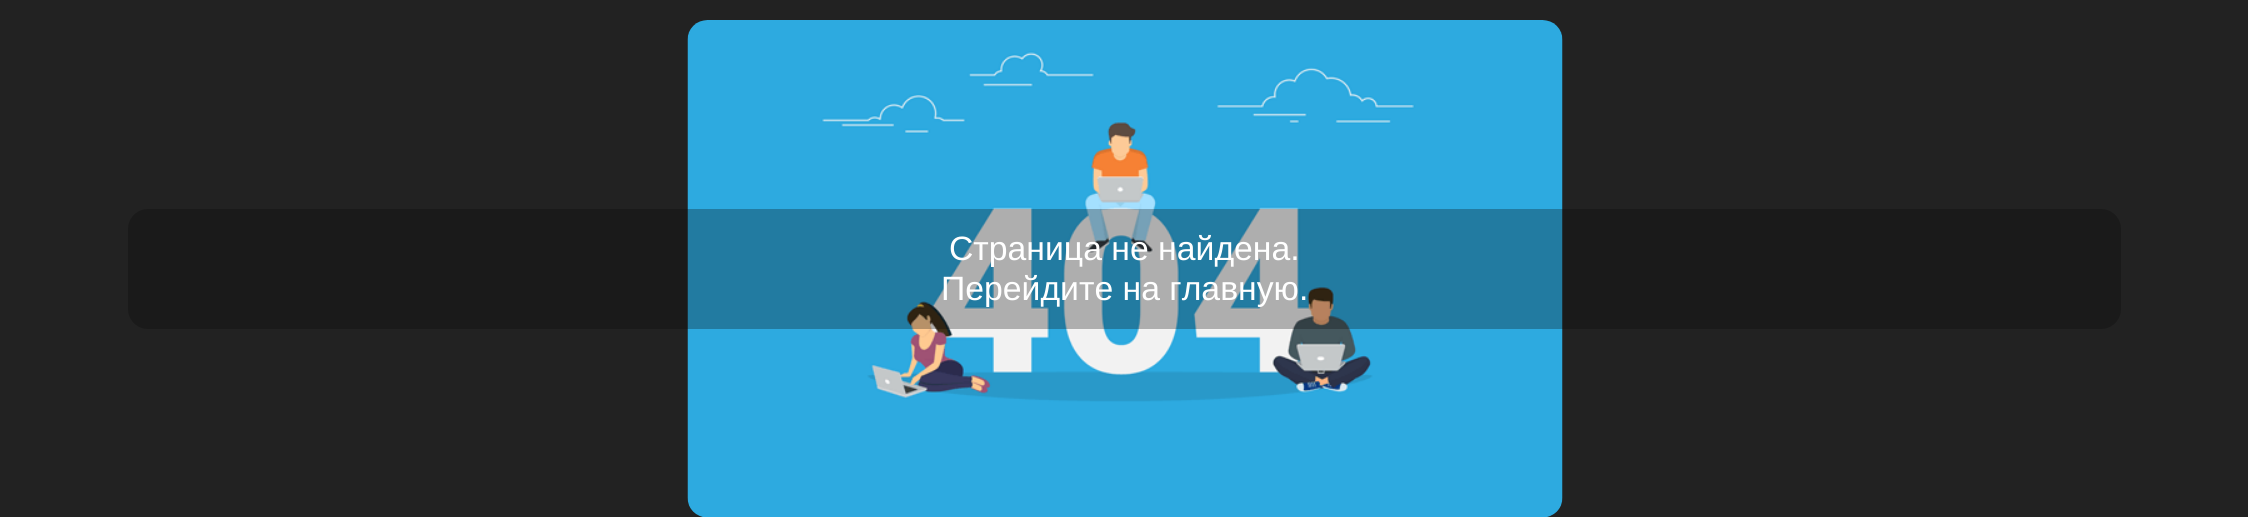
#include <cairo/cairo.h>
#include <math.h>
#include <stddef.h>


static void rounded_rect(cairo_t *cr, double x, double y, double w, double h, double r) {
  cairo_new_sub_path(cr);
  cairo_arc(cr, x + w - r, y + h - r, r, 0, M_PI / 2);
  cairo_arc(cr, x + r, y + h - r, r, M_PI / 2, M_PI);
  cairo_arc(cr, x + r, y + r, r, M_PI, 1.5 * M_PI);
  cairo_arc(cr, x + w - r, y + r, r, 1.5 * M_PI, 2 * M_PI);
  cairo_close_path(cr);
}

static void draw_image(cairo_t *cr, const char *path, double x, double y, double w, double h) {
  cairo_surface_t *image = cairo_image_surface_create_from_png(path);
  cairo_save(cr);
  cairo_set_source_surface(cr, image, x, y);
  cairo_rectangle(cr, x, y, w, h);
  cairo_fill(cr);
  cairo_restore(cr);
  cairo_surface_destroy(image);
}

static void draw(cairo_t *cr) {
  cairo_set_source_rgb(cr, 34 / 255.0, 34 / 255.0, 34 / 255.0);
  cairo_paint(cr);
  draw_image(cr, "images/1.png", 687, 20, 876, 497);
  cairo_set_source_rgba(cr, 10 / 255.0, 10 / 255.0, 10 / 255.0, 0.29);
  rounded_rect(cr, 128, 209, 1993, 120, 20);
  cairo_fill(cr);
  cairo_select_font_face(cr, "Liberation Sans", CAIRO_FONT_SLANT_NORMAL, CAIRO_FONT_WEIGHT_NORMAL);
  cairo_set_font_size(cr, 33.75);
  cairo_set_source_rgb(cr, 1, 1, 1);
  cairo_move_to(cr, 949, 260);
  cairo_show_text(cr, "Страница не найдена.");
  cairo_move_to(cr, 941, 300);
  cairo_show_text(cr, "Перейдите на главную.");
}

int main(void) {
  cairo_surface_t *surface = cairo_image_surface_create(CAIRO_FORMAT_RGB24, 2248, 517);
  cairo_t *cr = cairo_create(surface);
  cairo_font_options_t *options = cairo_font_options_create();
  cairo_font_options_set_hint_metrics(options, CAIRO_HINT_METRICS_OFF);
  cairo_font_options_set_hint_style(options, CAIRO_HINT_STYLE_NONE);
  cairo_set_font_options(cr, options);
  cairo_set_miter_limit(cr, 4);
  draw(cr);
  cairo_surface_write_to_png(surface, "out.png");
  cairo_font_options_destroy(options);
  cairo_destroy(cr);
  cairo_surface_destroy(surface);
  return 0;
}
